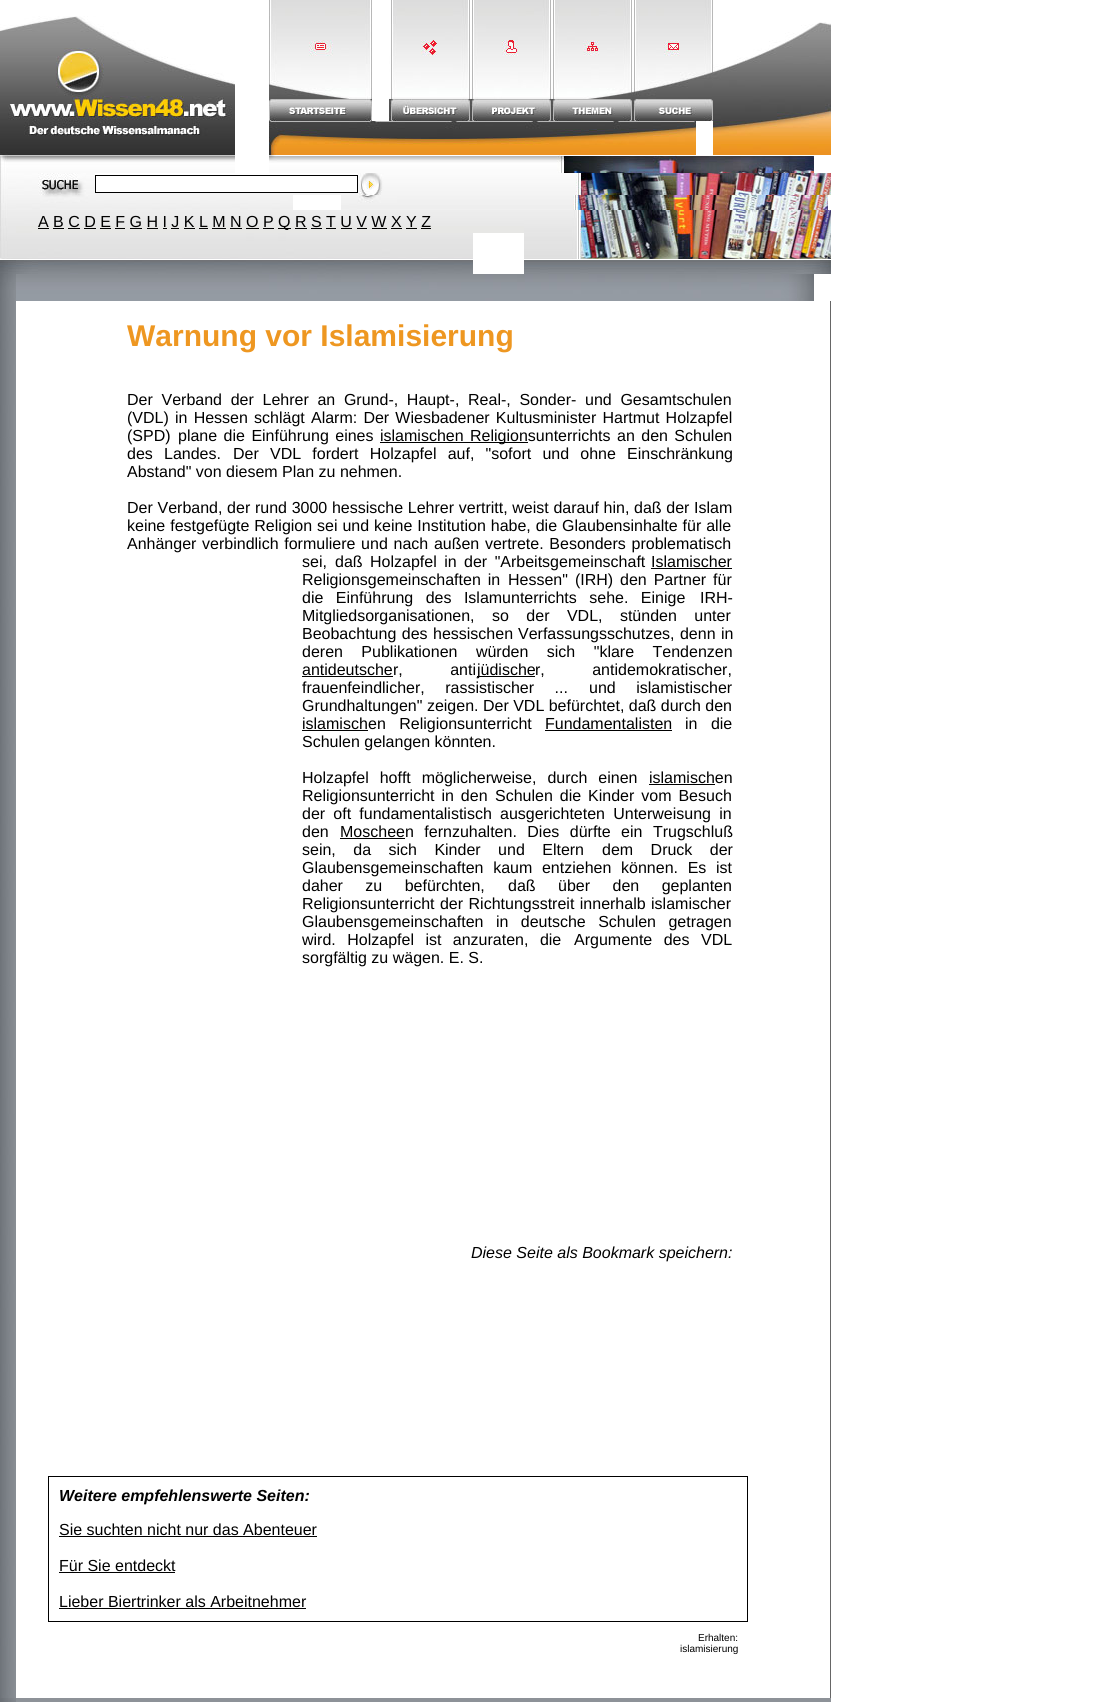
#include <cairo/cairo.h>
#include <math.h>
#include <stddef.h>


static void draw_spaced(cairo_t *cr, double x, double y, const char *s, double letter, double word) {
  cairo_move_to(cr, x, y);
  while (*s) {
    char ch[5] = {0};
    int n = 0;
    do ch[n++] = *s++; while ((*s & 0xC0) == 0x80);
    cairo_show_text(cr, ch);
    cairo_rel_move_to(cr, letter + word * (*ch == ' '), 0);
  }
}

static void draw_image(cairo_t *cr, const char *path, double x, double y, double w, double h) {
  cairo_surface_t *image = cairo_image_surface_create_from_png(path);
  cairo_save(cr);
  cairo_set_source_surface(cr, image, x, y);
  cairo_rectangle(cr, x, y, w, h);
  cairo_fill(cr);
  cairo_restore(cr);
  cairo_surface_destroy(image);
}

static void draw(cairo_t *cr) {
  cairo_set_source_rgb(cr, 1, 1, 1);
  cairo_paint(cr);
  draw_image(cr, "images/1.png", 0, 16, 235, 157);
  draw_image(cr, "images/2.png", 269, 0, 103, 99);
  draw_image(cr, "images/3.png", 389, 0, 81, 99);
  draw_image(cr, "images/4.png", 470, 0, 81, 99);
  draw_image(cr, "images/5.png", 551, 0, 81, 99);
  draw_image(cr, "images/6.png", 632, 0, 81, 99);
  draw_image(cr, "images/7.png", 713, 22, 118, 133);
  draw_image(cr, "images/8.png", 269, 99, 103, 22);
  draw_image(cr, "images/9.png", 389, 99, 81, 22);
  draw_image(cr, "images/10.png", 470, 99, 81, 22);
  draw_image(cr, "images/11.png", 551, 99, 81, 22);
  draw_image(cr, "images/12.png", 632, 99, 81, 22);
  draw_image(cr, "images/13.png", 269, 121, 427, 34);
  draw_image(cr, "images/14.png", 269, 155, 545, 18);
  draw_image(cr, "images/15.png", 0, 173, 38, 22);
  draw_image(cr, "images/16.png", 38, 173, 57, 22);
  draw_image(cr, "images/17.png", 95, 193, 263, 2);
  cairo_rectangle(cr, 95.5, 175.5, 262, 17);
  cairo_set_source_rgb(cr, 0, 0, 0);
  cairo_set_line_width(cr, 1);
  cairo_stroke(cr);
  draw_image(cr, "images/18.png", 358, 173, 26, 22);
  draw_image(cr, "images/19.png", 384, 173, 447, 22);
  draw_image(cr, "images/20.png", 0, 195, 293, 15);
  draw_image(cr, "images/21.png", 341, 195, 487, 15);
  draw_image(cr, "images/22.png", 0, 210, 38, 23);
  draw_image(cr, "images/23.png", 38, 210, 486, 23);
  cairo_rectangle(cr, 38, 228, 11, 1);
  cairo_fill(cr);
  cairo_rectangle(cr, 278, 228, 13, 1);
  cairo_fill(cr);
  cairo_rectangle(cr, 53, 228, 11, 1);
  cairo_fill(cr);
  cairo_rectangle(cr, 68, 228, 12, 1);
  cairo_fill(cr);
  cairo_rectangle(cr, 84, 228, 12, 1);
  cairo_fill(cr);
  cairo_rectangle(cr, 100, 228, 11, 1);
  cairo_fill(cr);
  cairo_rectangle(cr, 115, 228, 10, 1);
  cairo_fill(cr);
  cairo_rectangle(cr, 130, 228, 12, 1);
  cairo_fill(cr);
  cairo_rectangle(cr, 147, 228, 11, 1);
  cairo_fill(cr);
  cairo_rectangle(cr, 163, 228, 4, 1);
  cairo_fill(cr);
  cairo_rectangle(cr, 171, 228, 8, 1);
  cairo_fill(cr);
  cairo_rectangle(cr, 184, 228, 11, 1);
  cairo_fill(cr);
  cairo_rectangle(cr, 199, 228, 9, 1);
  cairo_fill(cr);
  cairo_rectangle(cr, 212, 228, 14, 1);
  cairo_fill(cr);
  cairo_rectangle(cr, 230, 228, 12, 1);
  cairo_fill(cr);
  cairo_rectangle(cr, 246, 228, 13, 1);
  cairo_fill(cr);
  cairo_rectangle(cr, 263, 228, 11, 1);
  cairo_fill(cr);
  cairo_rectangle(cr, 295, 228, 12, 1);
  cairo_fill(cr);
  cairo_rectangle(cr, 311, 228, 11, 1);
  cairo_fill(cr);
  cairo_rectangle(cr, 326, 228, 10, 1);
  cairo_fill(cr);
  cairo_rectangle(cr, 341, 228, 11, 1);
  cairo_fill(cr);
  cairo_rectangle(cr, 357, 228, 10, 1);
  cairo_fill(cr);
  cairo_rectangle(cr, 372, 228, 15, 1);
  cairo_fill(cr);
  cairo_rectangle(cr, 391, 228, 11, 1);
  cairo_fill(cr);
  cairo_rectangle(cr, 406, 228, 11, 1);
  cairo_fill(cr);
  cairo_rectangle(cr, 421, 228, 10, 1);
  cairo_fill(cr);
  draw_image(cr, "images/24.png", 524, 210, 307, 23);
  draw_image(cr, "images/25.png", 0, 233, 38, 26);
  draw_image(cr, "images/26.png", 38, 233, 435, 41);
  draw_image(cr, "images/27.png", 524, 233, 189, 26);
  draw_image(cr, "images/28.png", 713, 233, 118, 26);
  draw_image(cr, "images/29.png", 0, 260, 16, 14);
  draw_image(cr, "images/30.png", 16, 260, 22, 14);
  draw_image(cr, "images/31.png", 524, 260, 307, 14);
  draw_image(cr, "images/32.png", 0, 274, 16, 27);
  draw_image(cr, "images/33.png", 16, 274, 253, 27);
  draw_image(cr, "images/34.png", 269, 274, 545, 27);
  draw_image(cr, "images/35.png", 0, 301, 16, 1397);
  cairo_rectangle(cr, 380, 442, 148, 1);
  cairo_fill(cr);
  cairo_rectangle(cr, 651, 568, 81, 1);
  cairo_fill(cr);
  cairo_rectangle(cr, 302, 676, 91, 1);
  cairo_fill(cr);
  cairo_rectangle(cr, 477, 676, 58, 1);
  cairo_fill(cr);
  cairo_rectangle(cr, 302, 730, 66, 1);
  cairo_fill(cr);
  cairo_rectangle(cr, 545, 730, 127, 1);
  cairo_fill(cr);
  cairo_rectangle(cr, 649, 784, 66, 1);
  cairo_fill(cr);
  cairo_rectangle(cr, 340, 838, 65, 1);
  cairo_fill(cr);
  cairo_rectangle(cr, 48.5, 1476.5, 699, 145);
  cairo_stroke(cr);
  cairo_rectangle(cr, 59, 1536, 258, 1);
  cairo_fill(cr);
  cairo_rectangle(cr, 59, 1572, 116, 1);
  cairo_fill(cr);
  cairo_rectangle(cr, 59, 1608, 247, 1);
  cairo_fill(cr);
  cairo_set_source_rgb(cr, 102 / 255.0, 102 / 255.0, 102 / 255.0);
  cairo_rectangle(cr, 830, 301, 1, 1397);
  cairo_fill(cr);
  draw_image(cr, "images/36.png", 0, 1698, 16, 4);
  cairo_set_source_rgb(cr, 141 / 255.0, 146 / 255.0, 152 / 255.0);
  cairo_rectangle(cr, 16, 1698, 815, 4);
  cairo_fill(cr);
  cairo_select_font_face(cr, "Liberation Sans", CAIRO_FONT_SLANT_NORMAL, CAIRO_FONT_WEIGHT_NORMAL);
  cairo_set_font_size(cr, 16);
  cairo_set_source_rgb(cr, 0, 0, 0);
  cairo_move_to(cr, 38, 227);
  cairo_show_text(cr, "A B C D E F G H I J K L M N O P");
  cairo_move_to(cr, 278, 227);
  cairo_show_text(cr, "Q R S T U V W X Y Z");
  cairo_select_font_face(cr, "Liberation Sans", CAIRO_FONT_SLANT_NORMAL, CAIRO_FONT_WEIGHT_BOLD);
  cairo_set_font_size(cr, 30);
  cairo_set_source_rgb(cr, 238 / 255.0, 151 / 255.0, 33 / 255.0);
  cairo_move_to(cr, 127, 346);
  cairo_show_text(cr, "Warnung vor Islamisierung");
  cairo_select_font_face(cr, "Liberation Sans", CAIRO_FONT_SLANT_NORMAL, CAIRO_FONT_WEIGHT_NORMAL);
  cairo_set_font_size(cr, 16);
  cairo_set_source_rgb(cr, 0, 0, 0);
  draw_spaced(cr, 127, 405, "Der Verband der Lehrer an Grund-, Haupt-, Real-, Sonder- und Gesamtschulen", 0, 4.25);
  draw_spaced(cr, 127, 423, "(VDL) in Hessen schlägt Alarm: Der Wiesbadener Kultusminister Hartmut Holzapfel", 0, 1.75);
  cairo_move_to(cr, 127, 441);
  cairo_show_text(cr, "(SPD)");
  draw_spaced(cr, 178, 441, "plane die Einführung eines", 0, 2);
  draw_spaced(cr, 380, 441, "islamischen Religionsunterrichts an den Schulen", 0, 2);
  draw_spaced(cr, 127, 459, "des Landes.", 0, 6.75);
  draw_spaced(cr, 233, 459, "Der VDL fordert Holzapfel auf, \"sofort und ohne Einschränkung", 0, 6.75);
  cairo_move_to(cr, 127, 477);
  cairo_show_text(cr, "Abstand\" von diesem Plan zu nehmen.");
  draw_spaced(cr, 127, 513, "Der Verband, der rund 3000 hessische Lehrer vertritt, weist darauf hin, daß der Islam", 0, 0.25);
  draw_spaced(cr, 127, 531, "keine festgefügte Religion sei und keine Institution habe, die Glaubensinhalte für alle", 0, 0.5);
  draw_spaced(cr, 127, 549, "Anhänger verbindlich formuliere und nach außen vertrete. Besonders problematisch", 0, 1.25);
  cairo_move_to(cr, 302, 567);
  cairo_show_text(cr, "sei,");
  draw_spaced(cr, 335, 567, "daß Holzapfel in der \"Arbeitsgemeinschaft", 0, 3);
  cairo_move_to(cr, 651, 567);
  cairo_show_text(cr, "Islamischer");
  draw_spaced(cr, 302, 585, "Religionsgemeinschaften in", 0, 2.5);
  draw_spaced(cr, 508, 585, "Hessen\" (IRH) den Partner für", 0, 2.5);
  draw_spaced(cr, 302, 603, "die Einführung des Islamunterrichts sehe. Einige", 0, 8);
  cairo_move_to(cr, 700, 603);
  cairo_show_text(cr, "IRH-");
  draw_spaced(cr, 302, 621, "Mitgliedsorganisationen, so der VDL, stünden unter", 0, 13);
  draw_spaced(cr, 302, 639, "Beobachtung des hessischen", 0, 1);
  draw_spaced(cr, 518, 639, "Verfassungsschutzes, denn in", 0, 1);
  draw_spaced(cr, 302, 657, "deren Publikationen würden sich \"klare Tendenzen", 0, 14);
  cairo_move_to(cr, 302, 675);
  cairo_show_text(cr, "antideutsche");
  draw_spaced(cr, 393, 675, "r, anti", 0, 43);
  cairo_move_to(cr, 477, 675);
  cairo_show_text(cr, "jüdische");
  draw_spaced(cr, 535, 675, "r, antidemokratischer,", 0, 43);
  draw_spaced(cr, 302, 693, "frauenfeindlicher, rassistischer ...", 0, 16);
  draw_spaced(cr, 589, 693, "und islamistischer", 0, 16);
  cairo_move_to(cr, 302, 711);
  cairo_show_text(cr, "Grundhaltungen\" zeigen. Der VDL befürchtet, daß durch den");
  cairo_move_to(cr, 302, 729);
  cairo_show_text(cr, "islamisch");
  draw_spaced(cr, 368, 729, "en Religionsunterricht", 0, 9);
  cairo_move_to(cr, 545, 729);
  cairo_show_text(cr, "Fundamentalisten");
  draw_spaced(cr, 685, 729, "in die", 0, 9);
  cairo_move_to(cr, 302, 747);
  cairo_show_text(cr, "Schulen gelangen könnten.");
  draw_spaced(cr, 302, 783, "Holzapfel hofft möglicherweise, durch einen", 0, 6.5);
  cairo_move_to(cr, 649, 783);
  cairo_show_text(cr, "islamischen");
  draw_spaced(cr, 302, 801, "Religionsunterricht in den", 0, 2.5);
  draw_spaced(cr, 495, 801, "Schulen die Kinder vom Besuch", 0, 2.5);
  draw_spaced(cr, 302, 819, "der oft fundamentalistisch ausgerichteten Unterweisung in", 0, 3.75);
  cairo_move_to(cr, 302, 837);
  cairo_show_text(cr, "den");
  cairo_move_to(cr, 340, 837);
  cairo_show_text(cr, "Moschee");
  draw_spaced(cr, 405, 837, "n fernzuhalten. Dies dürfte ein Trugschluß", 0, 6);
  draw_spaced(cr, 302, 855, "sein, da sich Kinder und Eltern", 0, 13);
  draw_spaced(cr, 602, 855, "dem Druck der", 0, 13);
  draw_spaced(cr, 302, 873, "Glaubensgemeinschaften kaum entziehen können. Es ist", 0, 5.25);
  draw_spaced(cr, 302, 891, "daher zu befürchten,", 0, 18);
  draw_spaced(cr, 508, 891, "daß über den geplanten", 0, 18);
  draw_spaced(cr, 302, 909, "Religionsunterricht der Richtungsstreit innerhalb islamischer", 0, 1);
  draw_spaced(cr, 302, 927, "Glaubensgemeinschaften in deutsche Schulen getragen", 0, 8);
  draw_spaced(cr, 302, 945, "wird. Holzapfel ist anzuraten, die", 0, 7);
  draw_spaced(cr, 574, 945, "Argumente des VDL", 0, 7);
  cairo_move_to(cr, 302, 963);
  cairo_show_text(cr, "sorgfältig zu wägen. E. S.");
  cairo_select_font_face(cr, "Liberation Sans", CAIRO_FONT_SLANT_ITALIC, CAIRO_FONT_WEIGHT_NORMAL);
  cairo_move_to(cr, 471, 1258);
  cairo_show_text(cr, "Diese Seite als Bookmark speichern:");
  cairo_select_font_face(cr, "Liberation Sans", CAIRO_FONT_SLANT_ITALIC, CAIRO_FONT_WEIGHT_BOLD);
  cairo_move_to(cr, 59, 1501);
  cairo_show_text(cr, "Weitere empfehlenswerte Seiten:");
  cairo_select_font_face(cr, "Liberation Sans", CAIRO_FONT_SLANT_NORMAL, CAIRO_FONT_WEIGHT_NORMAL);
  cairo_move_to(cr, 59, 1535);
  cairo_show_text(cr, "Sie suchten nicht nur das Abenteuer");
  cairo_move_to(cr, 59, 1571);
  cairo_show_text(cr, "Für Sie entdeckt");
  cairo_move_to(cr, 59, 1607);
  cairo_show_text(cr, "Lieber Biertrinker als Arbeitnehmer");
  cairo_set_font_size(cr, 10);
  cairo_move_to(cr, 698, 1641);
  cairo_show_text(cr, "Erhalten:");
  cairo_move_to(cr, 680, 1652);
  cairo_show_text(cr, "islamisierung");
}

int main(void) {
  cairo_surface_t *surface = cairo_image_surface_create(CAIRO_FORMAT_RGB24, 1099, 1702);
  cairo_t *cr = cairo_create(surface);
  cairo_font_options_t *options = cairo_font_options_create();
  cairo_font_options_set_hint_metrics(options, CAIRO_HINT_METRICS_OFF);
  cairo_font_options_set_hint_style(options, CAIRO_HINT_STYLE_NONE);
  cairo_set_font_options(cr, options);
  cairo_set_miter_limit(cr, 4);
  draw(cr);
  cairo_surface_write_to_png(surface, "out.png");
  cairo_font_options_destroy(options);
  cairo_destroy(cr);
  cairo_surface_destroy(surface);
  return 0;
}
